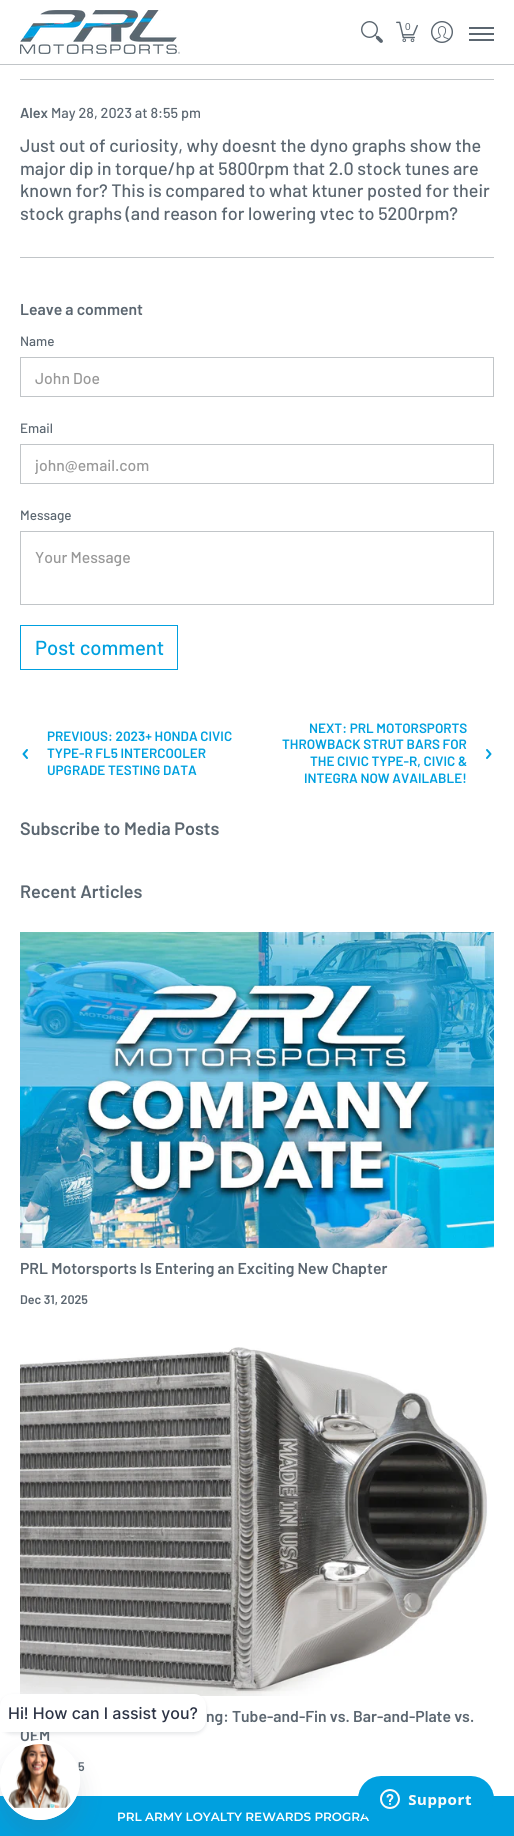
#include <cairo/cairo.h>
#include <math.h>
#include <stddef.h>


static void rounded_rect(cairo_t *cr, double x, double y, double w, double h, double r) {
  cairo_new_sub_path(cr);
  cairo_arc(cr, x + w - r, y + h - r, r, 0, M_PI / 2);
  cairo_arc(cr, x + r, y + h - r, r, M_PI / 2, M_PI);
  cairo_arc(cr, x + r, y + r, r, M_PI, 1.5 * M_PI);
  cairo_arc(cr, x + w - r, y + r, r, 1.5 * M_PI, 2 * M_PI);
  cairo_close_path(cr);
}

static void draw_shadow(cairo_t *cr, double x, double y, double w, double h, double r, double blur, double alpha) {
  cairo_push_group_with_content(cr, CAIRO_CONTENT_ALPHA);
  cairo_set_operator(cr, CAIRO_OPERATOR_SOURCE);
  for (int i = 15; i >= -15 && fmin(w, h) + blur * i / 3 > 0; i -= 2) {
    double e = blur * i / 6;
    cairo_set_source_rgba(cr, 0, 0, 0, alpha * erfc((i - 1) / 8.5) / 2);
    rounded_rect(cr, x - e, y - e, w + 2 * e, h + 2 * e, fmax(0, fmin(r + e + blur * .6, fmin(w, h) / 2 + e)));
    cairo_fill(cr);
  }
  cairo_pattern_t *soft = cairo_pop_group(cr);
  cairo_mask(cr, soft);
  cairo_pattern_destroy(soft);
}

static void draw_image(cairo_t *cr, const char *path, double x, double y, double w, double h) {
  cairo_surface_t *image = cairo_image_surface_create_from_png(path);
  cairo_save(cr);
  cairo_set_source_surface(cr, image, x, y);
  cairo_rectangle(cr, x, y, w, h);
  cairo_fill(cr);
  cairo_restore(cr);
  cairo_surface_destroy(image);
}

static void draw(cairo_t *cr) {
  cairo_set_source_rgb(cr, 1, 1, 1);
  cairo_paint(cr);
  cairo_set_source_rgb(cr, 193 / 255.0, 197 / 255.0, 200 / 255.0);
  cairo_rectangle(cr, 0, 64, 514, 1);
  cairo_fill(cr);
  draw_image(cr, "images/1.png", 20, 10, 160, 44);
  draw_image(cr, "images/2.png", 361, 21, 22, 22);
  draw_image(cr, "images/3.png", 396, 21, 22, 22);
  draw_image(cr, "images/4.png", 431, 21, 22, 22);
  cairo_set_source_rgb(cr, 91 / 255.0, 102 / 255.0, 112 / 255.0);
  cairo_rectangle(cr, 469, 27, 25, 2);
  cairo_fill(cr);
  cairo_rectangle(cr, 469, 39, 25, 2);
  cairo_fill(cr);
  cairo_rectangle(cr, 469, 33, 25, 2);
  cairo_fill(cr);
  cairo_set_source_rgb(cr, 193 / 255.0, 197 / 255.0, 200 / 255.0);
  cairo_rectangle(cr, 20, 79, 474, 1);
  cairo_fill(cr);
  cairo_rectangle(cr, 20, 257, 474, 1);
  cairo_fill(cr);
  cairo_rectangle(cr, 20.5, 357.5, 473, 39);
  cairo_set_line_width(cr, 1);
  cairo_stroke(cr);
  cairo_rectangle(cr, 20.5, 444.5, 473, 39);
  cairo_stroke(cr);
  cairo_rectangle(cr, 20.5, 531.5, 473, 73);
  cairo_stroke(cr);
  cairo_rectangle(cr, 20.5, 625.5, 157, 44);
  cairo_set_source_rgb(cr, 0, 160 / 255.0, 223 / 255.0);
  cairo_stroke(cr);
  cairo_new_path(cr);
  cairo_move_to(cr, 27, 750);
  cairo_line_to(cr, 23.5, 754);
  cairo_line_to(cr, 27, 758);
  cairo_set_line_width(cr, 2);
  cairo_set_line_cap(cr, CAIRO_LINE_CAP_ROUND);
  cairo_set_line_join(cr, CAIRO_LINE_JOIN_ROUND);
  cairo_stroke(cr);
  cairo_new_path(cr);
  cairo_move_to(cr, 487, 758);
  cairo_line_to(cr, 490.5, 754);
  cairo_line_to(cr, 487, 750);
  cairo_stroke(cr);
  draw_image(cr, "images/5.png", 20, 932, 474, 316);
  draw_image(cr, "images/6.png", 20, 1347, 468, 349);
  cairo_rectangle(cr, 0, 1796, 514, 40);
  cairo_fill(cr);
  cairo_select_font_face(cr, "Liberation Sans", CAIRO_FONT_SLANT_NORMAL, CAIRO_FONT_WEIGHT_NORMAL);
  cairo_set_font_size(cr, 10);
  cairo_set_source_rgb(cr, 91 / 255.0, 102 / 255.0, 112 / 255.0);
  cairo_move_to(cr, 405, 30);
  cairo_show_text(cr, "0");
  cairo_select_font_face(cr, "Barlow SemiBold", CAIRO_FONT_SLANT_NORMAL, CAIRO_FONT_WEIGHT_NORMAL);
  cairo_set_font_size(cr, 14.4);
  cairo_move_to(cr, 20, 118);
  cairo_show_text(cr, "Alex");
  cairo_select_font_face(cr, "Barlow Medium", CAIRO_FONT_SLANT_NORMAL, CAIRO_FONT_WEIGHT_NORMAL);
  cairo_move_to(cr, 51, 118);
  cairo_show_text(cr, "May 28, 2023 at 8:55 pm");
  cairo_set_font_size(cr, 18);
  cairo_move_to(cr, 20, 152);
  cairo_show_text(cr, "Just out of curiosity, why doesnt the dyno graphs show the");
  cairo_move_to(cr, 20, 175);
  cairo_show_text(cr, "major dip in torque/hp at 5800rpm that 2.0 stock tunes are");
  cairo_move_to(cr, 20, 197);
  cairo_show_text(cr, "known for? This is compared to what ktuner posted for their");
  cairo_move_to(cr, 20, 220);
  cairo_show_text(cr, "stock graphs (and reason for lowering vtec to 5200rpm?");
  cairo_select_font_face(cr, "Barlow SemiBold", CAIRO_FONT_SLANT_NORMAL, CAIRO_FONT_WEIGHT_NORMAL);
  cairo_set_font_size(cr, 15.75);
  cairo_move_to(cr, 20, 315);
  cairo_show_text(cr, "Leave a comment");
  cairo_select_font_face(cr, "Barlow Medium", CAIRO_FONT_SLANT_NORMAL, CAIRO_FONT_WEIGHT_NORMAL);
  cairo_set_font_size(cr, 13.5);
  cairo_move_to(cr, 20, 346);
  cairo_show_text(cr, "Name");
  cairo_set_font_size(cr, 15.75);
  cairo_set_source_rgb(cr, 152 / 255.0, 152 / 255.0, 152 / 255.0);
  cairo_move_to(cr, 35, 384);
  cairo_show_text(cr, "John Doe");
  cairo_set_font_size(cr, 13.5);
  cairo_set_source_rgb(cr, 91 / 255.0, 102 / 255.0, 112 / 255.0);
  cairo_move_to(cr, 20, 433);
  cairo_show_text(cr, "Email");
  cairo_save(cr);
  cairo_rectangle(cr, 35, 455, 445, 19);
  cairo_clip(cr);
  cairo_set_font_size(cr, 15.75);
  cairo_set_source_rgb(cr, 152 / 255.0, 152 / 255.0, 152 / 255.0);
  cairo_move_to(cr, 35, 471);
  cairo_show_text(cr, "john@email.com");
  cairo_restore(cr);
  cairo_move_to(cr, 20, 520);
  cairo_show_text(cr, "Message");
  cairo_set_font_size(cr, 15.75);
  cairo_set_source_rgb(cr, 152 / 255.0, 152 / 255.0, 152 / 255.0);
  cairo_move_to(cr, 35, 563);
  cairo_show_text(cr, "Your Message");
  cairo_set_font_size(cr, 20.25);
  cairo_set_source_rgb(cr, 0, 160 / 255.0, 223 / 255.0);
  cairo_move_to(cr, 35, 655);
  cairo_show_text(cr, "Post comment");
  cairo_select_font_face(cr, "Barlow SemiBold", CAIRO_FONT_SLANT_NORMAL, CAIRO_FONT_WEIGHT_NORMAL);
  cairo_set_font_size(cr, 13.5);
  cairo_move_to(cr, 47, 741);
  cairo_show_text(cr, "PREVIOUS: 2023+ HONDA CIVIC");
  cairo_move_to(cr, 47, 758);
  cairo_show_text(cr, "TYPE-R FL5 INTERCOOLER");
  cairo_move_to(cr, 47, 775);
  cairo_show_text(cr, "UPGRADE TESTING DATA");
  cairo_move_to(cr, 309, 733);
  cairo_show_text(cr, "NEXT: PRL MOTORSPORTS");
  cairo_move_to(cr, 282, 749);
  cairo_show_text(cr, "THROWBACK STRUT BARS FOR");
  cairo_move_to(cr, 310, 766);
  cairo_show_text(cr, "THE CIVIC TYPE-R, CIVIC &");
  cairo_move_to(cr, 304, 783);
  cairo_show_text(cr, "INTEGRA NOW AVAILABLE!");
  cairo_set_font_size(cr, 18);
  cairo_set_source_rgb(cr, 91 / 255.0, 102 / 255.0, 112 / 255.0);
  cairo_move_to(cr, 20, 835);
  cairo_show_text(cr, "Subscribe to Media Posts");
  cairo_move_to(cr, 20, 898);
  cairo_show_text(cr, "Recent Articles");
  cairo_set_font_size(cr, 15.75);
  cairo_move_to(cr, 20, 1274);
  cairo_show_text(cr, "PRL Motorsports Is Entering an Exciting New Chapter");
  cairo_set_font_size(cr, 12.5);
  cairo_move_to(cr, 20, 1304);
  cairo_show_text(cr, "Dec 31, 2025");
  cairo_set_font_size(cr, 15.75);
  cairo_move_to(cr, 206, 1722);
  cairo_show_text(cr, "ng: Tube-and-Fin vs. Bar-and-Plate vs.");
  cairo_move_to(cr, 20, 1741);
  cairo_show_text(cr, "OEM");
  cairo_set_font_size(cr, 12.5);
  cairo_move_to(cr, 78, 1771);
  cairo_show_text(cr, "5");
  cairo_set_source_rgb(cr, 1, 1, 1);
  cairo_new_path(cr);
  cairo_arc(cr, 40, 1780, 40, 0, 2 * M_PI);
  cairo_fill(cr);
  cairo_set_source_rgb(cr, 84 / 255.0, 95 / 255.0, 111 / 255.0);
  draw_shadow(cr, 0, 1696, 206, 38, 12, 2, 0.16);
  cairo_set_source_rgb(cr, 1, 1, 1);
  cairo_new_path(cr);
  cairo_move_to(cr, 12, 1694);
  cairo_line_to(cr, 194, 1694);
  cairo_curve_to(cr, 200.5, 1694, 206, 1699.5, 206, 1706);
  cairo_line_to(cr, 206, 1720);
  cairo_curve_to(cr, 206, 1726.5, 200.5, 1732, 194, 1732);
  cairo_line_to(cr, 0, 1732);
  cairo_line_to(cr, 0, 1706);
  cairo_curve_to(cr, 0, 1699.5, 5.5, 1694, 12, 1694);
  cairo_close_path(cr);
  cairo_fill(cr);
  cairo_save(cr);
  cairo_set_fill_rule(cr, CAIRO_FILL_RULE_EVEN_ODD);
  cairo_new_path(cr);
  cairo_move_to(cr, 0, 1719);
  cairo_line_to(cr, 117, 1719);
  cairo_line_to(cr, 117, 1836);
  cairo_line_to(cr, 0, 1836);
  cairo_close_path(cr);
  cairo_move_to(cr, 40, 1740);
  cairo_curve_to(cr, 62, 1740, 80, 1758, 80, 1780);
  cairo_curve_to(cr, 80, 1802, 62, 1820, 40, 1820);
  cairo_curve_to(cr, 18, 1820, 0, 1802, 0, 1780);
  cairo_curve_to(cr, 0, 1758, 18, 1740, 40, 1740);
  cairo_close_path(cr);
  cairo_clip(cr);
  cairo_set_source_rgb(cr, 84 / 255.0, 95 / 255.0, 111 / 255.0);
  draw_shadow(cr, 0, 1756, 80, 80, 40, 12, 0.16);
  cairo_restore(cr);
  cairo_arc(cr, 40, 1780, 38.5, 0, 2 * M_PI);
  cairo_set_line_width(cr, 3);
  cairo_set_line_cap(cr, CAIRO_LINE_CAP_BUTT);
  cairo_set_line_join(cr, CAIRO_LINE_JOIN_MITER);
  cairo_stroke(cr);
  draw_image(cr, "images/7.png", 8, 1744, 63, 64);
  cairo_select_font_face(cr, "Inter Medium", CAIRO_FONT_SLANT_NORMAL, CAIRO_FONT_WEIGHT_NORMAL);
  cairo_set_font_size(cr, 16);
  cairo_set_source_rgb(cr, 44 / 255.0, 51 / 255.0, 69 / 255.0);
  cairo_move_to(cr, 8, 1719);
  cairo_show_text(cr, "Hi! How can I assist you?");
  cairo_select_font_face(cr, "Montserrat SemiBold", CAIRO_FONT_SLANT_NORMAL, CAIRO_FONT_WEIGHT_NORMAL);
  cairo_set_font_size(cr, 12);
  cairo_set_source_rgb(cr, 1, 1, 1);
  cairo_move_to(cr, 117, 1821);
  cairo_show_text(cr, "PRL ARMY LOYALTY REWARDS PROGRA");
  draw_image(cr, "images/8.png", 358, 1776, 136, 45);
}

int main(void) {
  cairo_surface_t *surface = cairo_image_surface_create(CAIRO_FORMAT_RGB24, 514, 1836);
  cairo_t *cr = cairo_create(surface);
  cairo_font_options_t *options = cairo_font_options_create();
  cairo_font_options_set_hint_metrics(options, CAIRO_HINT_METRICS_OFF);
  cairo_font_options_set_hint_style(options, CAIRO_HINT_STYLE_NONE);
  cairo_set_font_options(cr, options);
  cairo_set_miter_limit(cr, 4);
  draw(cr);
  cairo_surface_write_to_png(surface, "out.png");
  cairo_font_options_destroy(options);
  cairo_destroy(cr);
  cairo_surface_destroy(surface);
  return 0;
}
